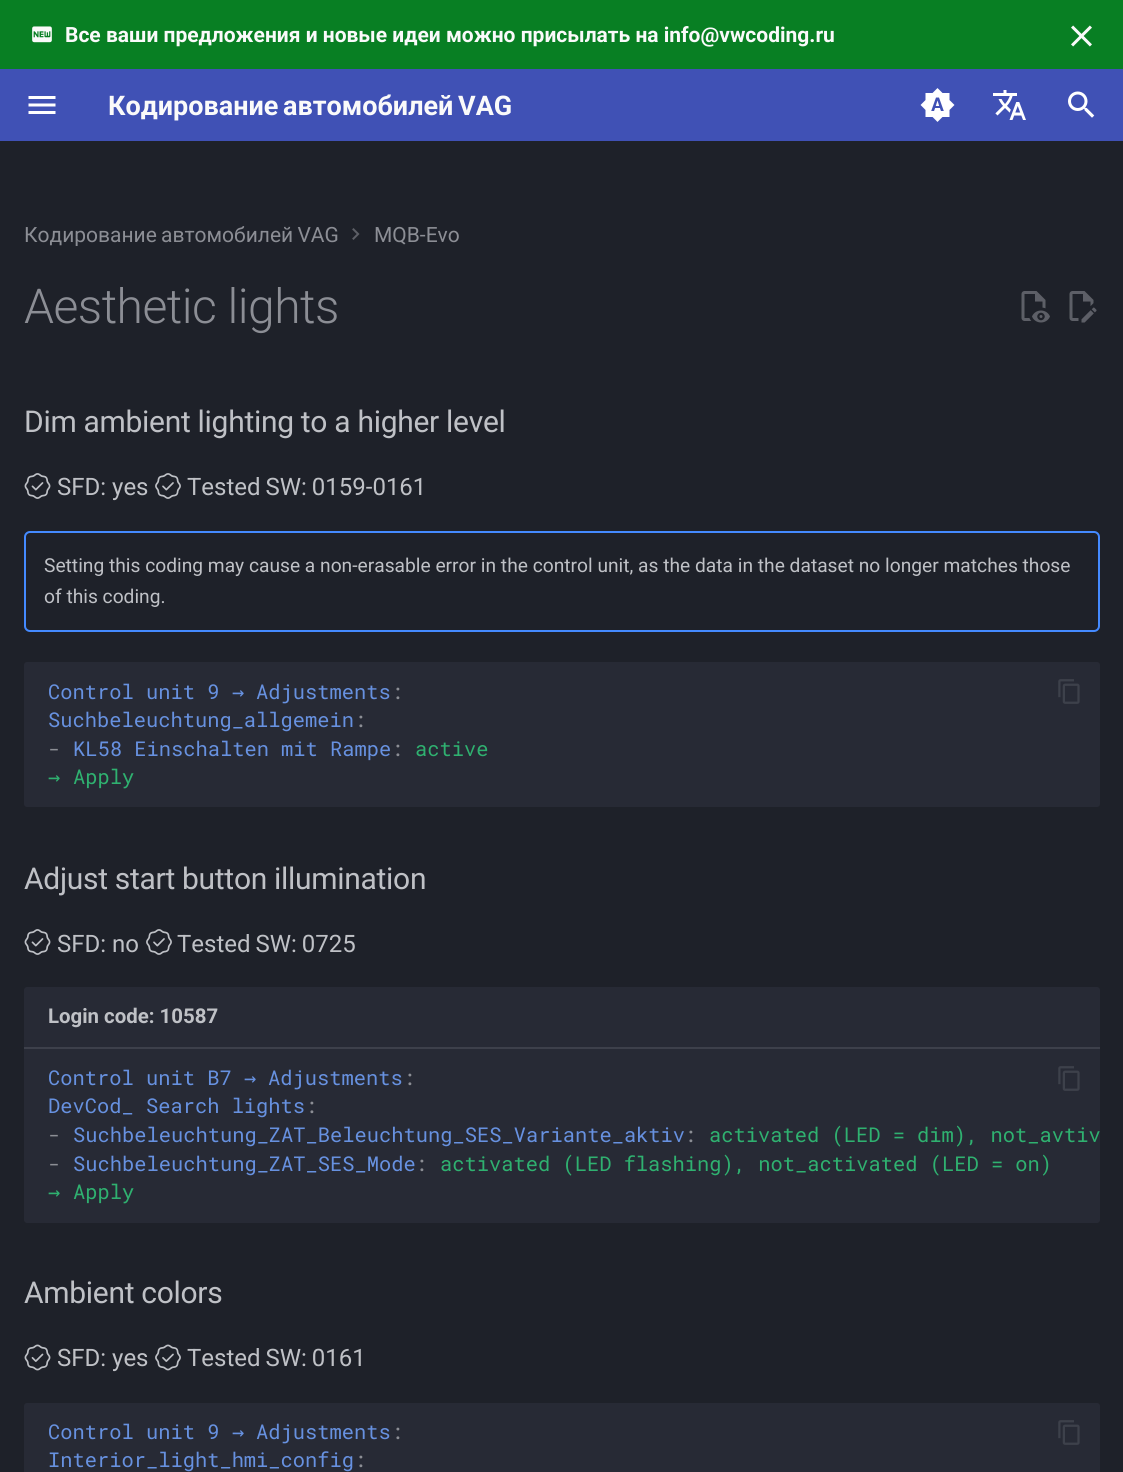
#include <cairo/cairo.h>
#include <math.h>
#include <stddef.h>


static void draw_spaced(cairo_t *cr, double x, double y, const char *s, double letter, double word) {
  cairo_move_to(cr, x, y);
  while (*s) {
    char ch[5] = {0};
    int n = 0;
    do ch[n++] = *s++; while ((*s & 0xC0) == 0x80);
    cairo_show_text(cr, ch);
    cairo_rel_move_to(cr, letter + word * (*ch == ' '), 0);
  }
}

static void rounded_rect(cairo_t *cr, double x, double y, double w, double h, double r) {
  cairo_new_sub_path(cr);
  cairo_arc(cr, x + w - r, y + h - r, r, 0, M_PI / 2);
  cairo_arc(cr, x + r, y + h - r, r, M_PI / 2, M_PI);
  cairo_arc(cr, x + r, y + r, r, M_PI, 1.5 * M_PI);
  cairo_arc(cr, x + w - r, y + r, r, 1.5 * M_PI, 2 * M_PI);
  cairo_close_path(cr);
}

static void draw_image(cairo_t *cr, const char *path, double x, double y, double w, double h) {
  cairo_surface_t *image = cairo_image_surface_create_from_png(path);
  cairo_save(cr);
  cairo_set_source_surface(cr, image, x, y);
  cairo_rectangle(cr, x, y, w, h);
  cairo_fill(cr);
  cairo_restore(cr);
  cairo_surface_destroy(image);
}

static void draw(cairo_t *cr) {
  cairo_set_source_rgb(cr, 30 / 255.0, 33 / 255.0, 41 / 255.0);
  cairo_paint(cr);
  cairo_set_source_rgb(cr, 8 / 255.0, 127 / 255.0, 35 / 255.0);
  cairo_rectangle(cr, 0, 0, 1123, 69);
  cairo_fill(cr);
  draw_image(cr, "images/1.png", 32, 26, 20, 17);
  draw_image(cr, "images/2.png", 1071, 25, 21, 22);
  cairo_set_source_rgb(cr, 64 / 255.0, 81 / 255.0, 181 / 255.0);
  cairo_rectangle(cr, 0, 69, 1123, 72);
  cairo_fill(cr);
  draw_image(cr, "images/3.png", 28, 96, 28, 18);
  draw_image(cr, "images/4.png", 920, 88, 35, 34);
  draw_image(cr, "images/5.png", 993, 90, 33, 30);
  draw_image(cr, "images/6.png", 1068, 91, 27, 27);
  draw_image(cr, "images/7.png", 352, 228, 8, 12);
  draw_image(cr, "images/8.png", 1021, 291, 29, 32);
  draw_image(cr, "images/9.png", 1069, 291, 28, 32);
  draw_image(cr, "images/10.png", 24, 473, 27, 26);
  draw_image(cr, "images/11.png", 155, 473, 26, 26);
  rounded_rect(cr, 25, 532, 1074, 99, 5);
  cairo_set_source_rgb(cr, 68 / 255.0, 138 / 255.0, 1);
  cairo_stroke(cr);
  cairo_set_source_rgb(cr, 39 / 255.0, 42 / 255.0, 53 / 255.0);
  rounded_rect(cr, 24, 662, 1076, 145, 3);
  cairo_fill(cr);
  draw_image(cr, "images/12.png", 1058, 679, 22, 25);
  draw_image(cr, "images/10.png", 24, 929, 27, 26);
  draw_image(cr, "images/11.png", 146, 929, 26, 26);
  cairo_new_path(cr);
  cairo_move_to(cr, 27, 987);
  cairo_line_to(cr, 1097, 987);
  cairo_curve_to(cr, 1098.5, 987, 1100, 988.5, 1100, 990);
  cairo_line_to(cr, 1100, 1049);
  cairo_line_to(cr, 24, 1049);
  cairo_line_to(cr, 24, 990);
  cairo_curve_to(cr, 24, 988.5, 25.5, 987, 27, 987);
  cairo_close_path(cr);
  cairo_fill(cr);
  cairo_set_source_rgb(cr, 61 / 255.0, 64 / 255.0, 75 / 255.0);
  cairo_rectangle(cr, 24, 1047, 1076, 2);
  cairo_fill(cr);
  cairo_set_source_rgb(cr, 39 / 255.0, 42 / 255.0, 53 / 255.0);
  cairo_new_path(cr);
  cairo_move_to(cr, 24, 1049);
  cairo_line_to(cr, 1100, 1049);
  cairo_line_to(cr, 1100, 1220);
  cairo_curve_to(cr, 1100, 1221.5, 1098.5, 1223, 1097, 1223);
  cairo_line_to(cr, 27, 1223);
  cairo_curve_to(cr, 25.5, 1223, 24, 1221.5, 24, 1220);
  cairo_close_path(cr);
  cairo_fill(cr);
  draw_image(cr, "images/12.png", 1058, 1066, 22, 25);
  draw_image(cr, "images/13.png", 24, 1344, 27, 27);
  draw_image(cr, "images/14.png", 155, 1344, 26, 27);
  rounded_rect(cr, 24, 1403, 1076, 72, 3);
  cairo_fill(cr);
  draw_image(cr, "images/12.png", 1058, 1420, 22, 25);
  cairo_select_font_face(cr, "Roboto", CAIRO_FONT_SLANT_NORMAL, CAIRO_FONT_WEIGHT_BOLD);
  cairo_set_font_size(cr, 21);
  cairo_set_source_rgb(cr, 250 / 255.0, 250 / 255.0, 250 / 255.0);
  cairo_move_to(cr, 65, 42);
  cairo_show_text(cr, "Все ваши предложения и новые идеи можно присылать на info@vwcoding.ru");
  cairo_set_font_size(cr, 27);
  draw_spaced(cr, 108, 115, "Кодирование автомобилей VAG", 0, -2);
  cairo_save(cr);
  cairo_rectangle(cr, 24, 222, 314, 24);
  cairo_clip(cr);
  cairo_select_font_face(cr, "Roboto", CAIRO_FONT_SLANT_NORMAL, CAIRO_FONT_WEIGHT_NORMAL);
  cairo_set_font_size(cr, 21);
  cairo_set_source_rgb(cr, 140 / 255.0, 142 / 255.0, 149 / 255.0);
  draw_spaced(cr, 24, 242, "Кодирование автомобилей VAG", 0, -1);
  cairo_restore(cr);
  cairo_select_font_face(cr, "Roboto", CAIRO_FONT_SLANT_NORMAL, CAIRO_FONT_WEIGHT_NORMAL);
  cairo_set_font_size(cr, 21);
  cairo_set_source_rgb(cr, 140 / 255.0, 142 / 255.0, 149 / 255.0);
  cairo_move_to(cr, 374, 242);
  cairo_show_text(cr, "MQB-Evo");
  cairo_select_font_face(cr, "Roboto Light", CAIRO_FONT_SLANT_NORMAL, CAIRO_FONT_WEIGHT_NORMAL);
  cairo_set_font_size(cr, 48);
  draw_spaced(cr, 24, 323, "Aesthetic lights", -0.5, 0);
  cairo_select_font_face(cr, "Roboto", CAIRO_FONT_SLANT_NORMAL, CAIRO_FONT_WEIGHT_NORMAL);
  cairo_set_font_size(cr, 30);
  cairo_set_source_rgb(cr, 191 / 255.0, 193 / 255.0, 198 / 255.0);
  draw_spaced(cr, 24, 432, "Dim ambient lighting to a higher level", -0.3, 0);
  cairo_set_font_size(cr, 24);
  cairo_move_to(cr, 57, 495);
  cairo_show_text(cr, "SFD: yes");
  draw_spaced(cr, 187, 495, "Tested SW: 0159-0161", 0, -1);
  cairo_set_font_size(cr, 19.2);
  cairo_move_to(cr, 44, 572);
  cairo_show_text(cr, "Setting this coding may cause a non-erasable error in the control unit, as the data in the dataset no longer matches those");
  cairo_move_to(cr, 44, 603);
  cairo_show_text(cr, "of this coding.");
  cairo_select_font_face(cr, "Roboto Mono", CAIRO_FONT_SLANT_NORMAL, CAIRO_FONT_WEIGHT_NORMAL);
  cairo_set_font_size(cr, 20.4);
  cairo_set_source_rgb(cr, 103 / 255.0, 145 / 255.0, 224 / 255.0);
  cairo_move_to(cr, 48, 699);
  cairo_show_text(cr, "Control unit 9");
  cairo_select_font_face(cr, "DejaVu Sans Mono", CAIRO_FONT_SLANT_NORMAL, CAIRO_FONT_WEIGHT_NORMAL);
  cairo_move_to(cr, 232, 699);
  cairo_show_text(cr, "→");
  cairo_select_font_face(cr, "Roboto Mono", CAIRO_FONT_SLANT_NORMAL, CAIRO_FONT_WEIGHT_NORMAL);
  cairo_move_to(cr, 256, 699);
  cairo_show_text(cr, "Adjustments");
  cairo_set_source_rgb(cr, 140 / 255.0, 142 / 255.0, 149 / 255.0);
  cairo_move_to(cr, 391, 699);
  cairo_show_text(cr, ":");
  cairo_set_source_rgb(cr, 103 / 255.0, 145 / 255.0, 224 / 255.0);
  cairo_move_to(cr, 48, 727);
  cairo_show_text(cr, "Suchbeleuchtung_allgemein");
  cairo_set_source_rgb(cr, 140 / 255.0, 142 / 255.0, 149 / 255.0);
  cairo_move_to(cr, 354, 727);
  cairo_show_text(cr, ":");
  cairo_move_to(cr, 48, 756);
  cairo_show_text(cr, "-");
  cairo_set_source_rgb(cr, 103 / 255.0, 145 / 255.0, 224 / 255.0);
  cairo_move_to(cr, 73, 756);
  cairo_show_text(cr, "KL58 Einschalten mit Rampe");
  cairo_set_source_rgb(cr, 140 / 255.0, 142 / 255.0, 149 / 255.0);
  cairo_move_to(cr, 391, 756);
  cairo_show_text(cr, ":");
  cairo_set_source_rgb(cr, 47 / 255.0, 177 / 255.0, 112 / 255.0);
  cairo_move_to(cr, 415, 756);
  cairo_show_text(cr, "active");
  cairo_select_font_face(cr, "DejaVu Sans Mono", CAIRO_FONT_SLANT_NORMAL, CAIRO_FONT_WEIGHT_NORMAL);
  cairo_move_to(cr, 48, 784);
  cairo_show_text(cr, "→");
  cairo_select_font_face(cr, "Roboto Mono", CAIRO_FONT_SLANT_NORMAL, CAIRO_FONT_WEIGHT_NORMAL);
  cairo_move_to(cr, 73, 784);
  cairo_show_text(cr, "Apply");
  cairo_select_font_face(cr, "Roboto", CAIRO_FONT_SLANT_NORMAL, CAIRO_FONT_WEIGHT_NORMAL);
  cairo_set_font_size(cr, 30);
  cairo_set_source_rgb(cr, 191 / 255.0, 193 / 255.0, 198 / 255.0);
  draw_spaced(cr, 24, 889, "Adjust start button illumination", -0.3, 0);
  cairo_set_font_size(cr, 24);
  cairo_move_to(cr, 57, 952);
  cairo_show_text(cr, "SFD: no");
  draw_spaced(cr, 177, 952, "Tested SW: 0725", 0, -1);
  cairo_select_font_face(cr, "Roboto", CAIRO_FONT_SLANT_NORMAL, CAIRO_FONT_WEIGHT_BOLD);
  cairo_set_font_size(cr, 20.4);
  cairo_move_to(cr, 48, 1023);
  cairo_show_text(cr, "Login code: 10587");
  cairo_select_font_face(cr, "Roboto Mono", CAIRO_FONT_SLANT_NORMAL, CAIRO_FONT_WEIGHT_NORMAL);
  cairo_set_source_rgb(cr, 103 / 255.0, 145 / 255.0, 224 / 255.0);
  cairo_move_to(cr, 48, 1085);
  cairo_show_text(cr, "Control unit B7");
  cairo_select_font_face(cr, "DejaVu Sans Mono", CAIRO_FONT_SLANT_NORMAL, CAIRO_FONT_WEIGHT_NORMAL);
  cairo_move_to(cr, 244, 1085);
  cairo_show_text(cr, "→");
  cairo_select_font_face(cr, "Roboto Mono", CAIRO_FONT_SLANT_NORMAL, CAIRO_FONT_WEIGHT_NORMAL);
  cairo_move_to(cr, 268, 1085);
  cairo_show_text(cr, "Adjustments");
  cairo_set_source_rgb(cr, 140 / 255.0, 142 / 255.0, 149 / 255.0);
  cairo_move_to(cr, 403, 1085);
  cairo_show_text(cr, ":");
  cairo_set_source_rgb(cr, 103 / 255.0, 145 / 255.0, 224 / 255.0);
  cairo_move_to(cr, 48, 1113);
  cairo_show_text(cr, "DevCod_ Search lights");
  cairo_set_source_rgb(cr, 140 / 255.0, 142 / 255.0, 149 / 255.0);
  cairo_move_to(cr, 305, 1113);
  cairo_show_text(cr, ":");
  cairo_move_to(cr, 48, 1142);
  cairo_show_text(cr, "-");
  cairo_set_source_rgb(cr, 103 / 255.0, 145 / 255.0, 224 / 255.0);
  cairo_move_to(cr, 73, 1142);
  cairo_show_text(cr, "Suchbeleuchtung_ZAT_Beleuchtung_SES_Variante_aktiv");
  cairo_set_source_rgb(cr, 140 / 255.0, 142 / 255.0, 149 / 255.0);
  cairo_move_to(cr, 684, 1142);
  cairo_show_text(cr, ":");
  cairo_set_source_rgb(cr, 47 / 255.0, 177 / 255.0, 112 / 255.0);
  cairo_move_to(cr, 709, 1142);
  cairo_show_text(cr, "activated (LED = dim), not_avtiv");
  cairo_set_source_rgb(cr, 140 / 255.0, 142 / 255.0, 149 / 255.0);
  cairo_move_to(cr, 48, 1171);
  cairo_show_text(cr, "-");
  cairo_set_source_rgb(cr, 103 / 255.0, 145 / 255.0, 224 / 255.0);
  cairo_move_to(cr, 73, 1171);
  cairo_show_text(cr, "Suchbeleuchtung_ZAT_SES_Mode");
  cairo_set_source_rgb(cr, 140 / 255.0, 142 / 255.0, 149 / 255.0);
  cairo_move_to(cr, 415, 1171);
  cairo_show_text(cr, ":");
  cairo_set_source_rgb(cr, 47 / 255.0, 177 / 255.0, 112 / 255.0);
  cairo_move_to(cr, 440, 1171);
  cairo_show_text(cr, "activated (LED flashing), not_activated (LED = on)");
  cairo_select_font_face(cr, "DejaVu Sans Mono", CAIRO_FONT_SLANT_NORMAL, CAIRO_FONT_WEIGHT_NORMAL);
  cairo_move_to(cr, 48, 1199);
  cairo_show_text(cr, "→");
  cairo_select_font_face(cr, "Roboto Mono", CAIRO_FONT_SLANT_NORMAL, CAIRO_FONT_WEIGHT_NORMAL);
  cairo_move_to(cr, 73, 1199);
  cairo_show_text(cr, "Apply");
  cairo_select_font_face(cr, "Roboto", CAIRO_FONT_SLANT_NORMAL, CAIRO_FONT_WEIGHT_NORMAL);
  cairo_set_font_size(cr, 30);
  cairo_set_source_rgb(cr, 191 / 255.0, 193 / 255.0, 198 / 255.0);
  draw_spaced(cr, 24, 1303, "Ambient colors", -0.3, 0);
  cairo_set_font_size(cr, 24);
  cairo_move_to(cr, 57, 1366);
  cairo_show_text(cr, "SFD: yes");
  draw_spaced(cr, 187, 1366, "Tested SW: 0161", 0, -1);
  cairo_select_font_face(cr, "Roboto Mono", CAIRO_FONT_SLANT_NORMAL, CAIRO_FONT_WEIGHT_NORMAL);
  cairo_set_font_size(cr, 20.4);
  cairo_set_source_rgb(cr, 103 / 255.0, 145 / 255.0, 224 / 255.0);
  cairo_move_to(cr, 48, 1439);
  cairo_show_text(cr, "Control unit 9");
  cairo_select_font_face(cr, "DejaVu Sans Mono", CAIRO_FONT_SLANT_NORMAL, CAIRO_FONT_WEIGHT_NORMAL);
  cairo_move_to(cr, 232, 1439);
  cairo_show_text(cr, "→");
  cairo_select_font_face(cr, "Roboto Mono", CAIRO_FONT_SLANT_NORMAL, CAIRO_FONT_WEIGHT_NORMAL);
  cairo_move_to(cr, 256, 1439);
  cairo_show_text(cr, "Adjustments");
  cairo_set_source_rgb(cr, 140 / 255.0, 142 / 255.0, 149 / 255.0);
  cairo_move_to(cr, 391, 1439);
  cairo_show_text(cr, ":");
  cairo_set_source_rgb(cr, 103 / 255.0, 145 / 255.0, 224 / 255.0);
  cairo_move_to(cr, 48, 1467);
  cairo_show_text(cr, "Interior_light_hmi_config");
  cairo_set_source_rgb(cr, 140 / 255.0, 142 / 255.0, 149 / 255.0);
  cairo_move_to(cr, 354, 1467);
  cairo_show_text(cr, ":");
}

int main(void) {
  cairo_surface_t *surface = cairo_image_surface_create(CAIRO_FORMAT_RGB24, 1123, 1472);
  cairo_t *cr = cairo_create(surface);
  cairo_font_options_t *options = cairo_font_options_create();
  cairo_font_options_set_hint_metrics(options, CAIRO_HINT_METRICS_OFF);
  cairo_font_options_set_hint_style(options, CAIRO_HINT_STYLE_NONE);
  cairo_set_font_options(cr, options);
  cairo_set_miter_limit(cr, 4);
  draw(cr);
  cairo_surface_write_to_png(surface, "out.png");
  cairo_font_options_destroy(options);
  cairo_destroy(cr);
  cairo_surface_destroy(surface);
  return 0;
}
